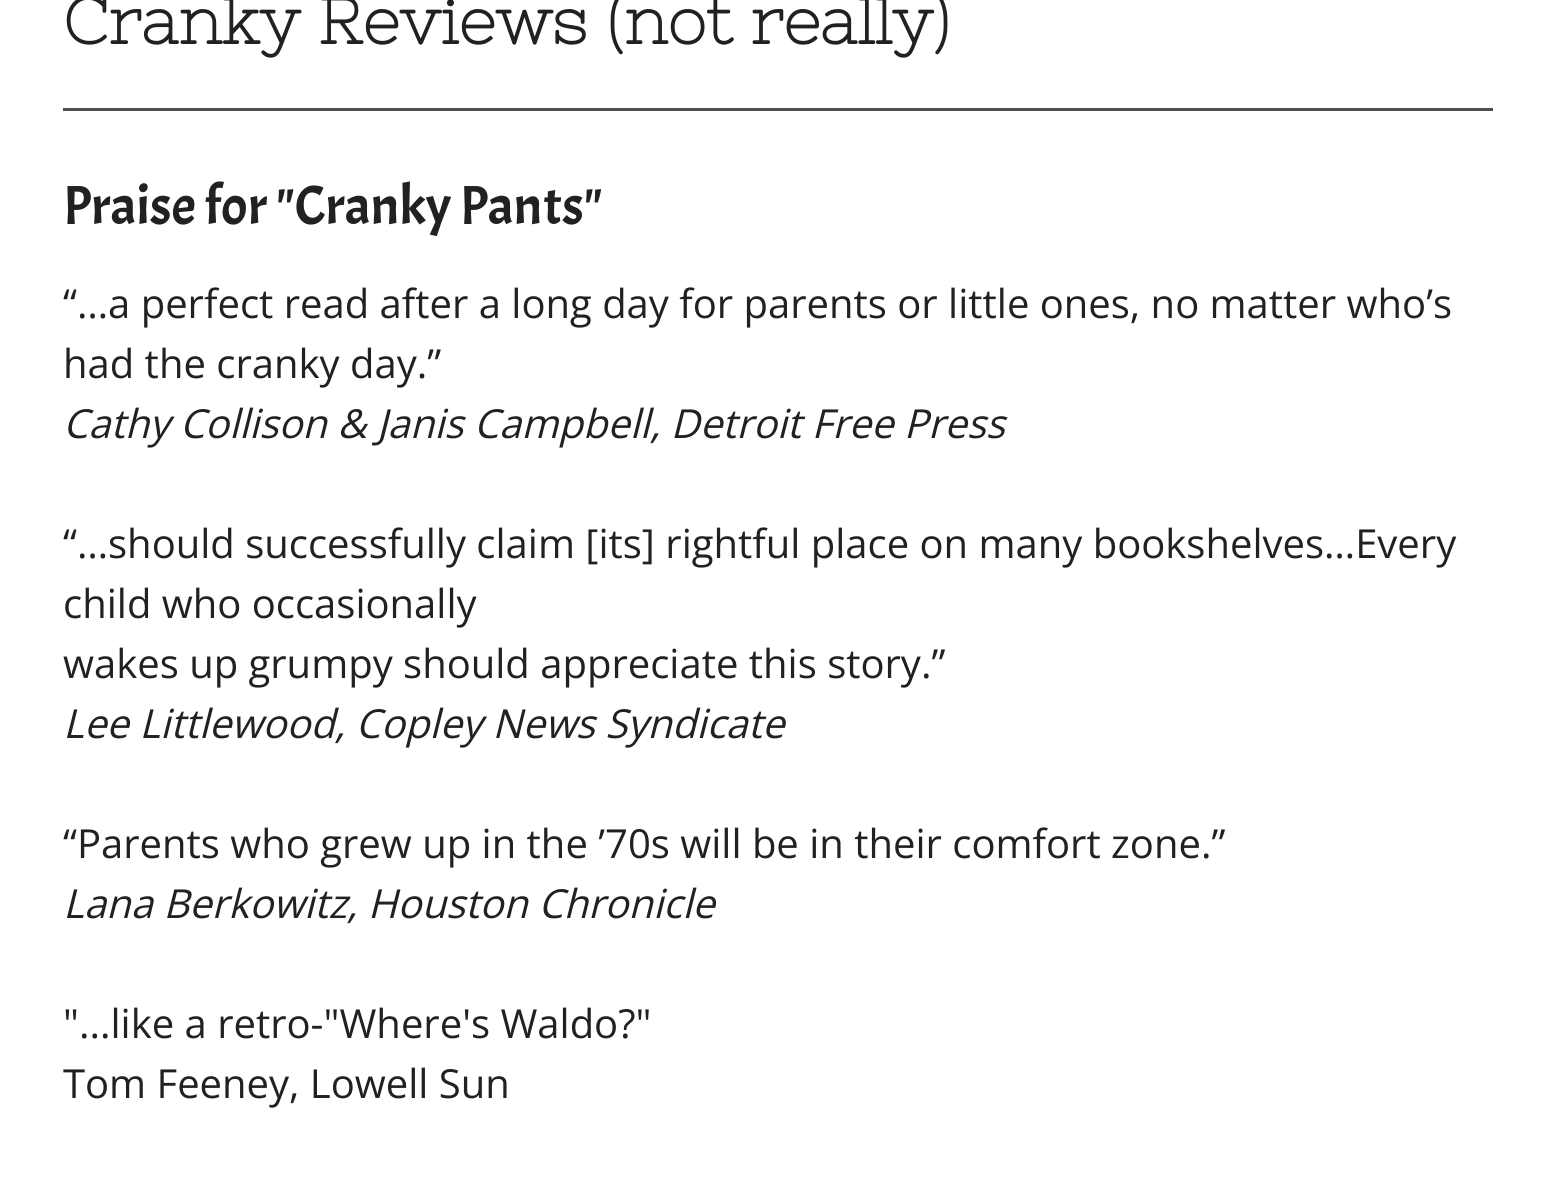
#include <cairo/cairo.h>
#include <math.h>
#include <stddef.h>


static void draw(cairo_t *cr) {
  cairo_set_source_rgb(cr, 1, 1, 1);
  cairo_paint(cr);
  cairo_set_source_rgb(cr, 80 / 255.0, 80 / 255.0, 80 / 255.0);
  cairo_rectangle(cr, 63, 108, 1430, 3);
  cairo_fill(cr);
  cairo_select_font_face(cr, "Nixie One", CAIRO_FONT_SLANT_NORMAL, CAIRO_FONT_WEIGHT_BOLD);
  cairo_set_font_size(cr, 65);
  cairo_set_source_rgb(cr, 33 / 255.0, 33 / 255.0, 33 / 255.0);
  cairo_move_to(cr, 63, 44);
  cairo_show_text(cr, "Cranky Reviews (not really)");
  cairo_select_font_face(cr, "Acme", CAIRO_FONT_SLANT_NORMAL, CAIRO_FONT_WEIGHT_NORMAL);
  cairo_set_font_size(cr, 55);
  cairo_move_to(cr, 63, 224);
  cairo_show_text(cr, "Praise for \"Cranky Pants\"");
  cairo_select_font_face(cr, "Open Sans", CAIRO_FONT_SLANT_NORMAL, CAIRO_FONT_WEIGHT_NORMAL);
  cairo_set_font_size(cr, 40);
  cairo_move_to(cr, 63, 318);
  cairo_show_text(cr, "“…a perfect read after a long day for parents or little ones, no matter who’s");
  cairo_move_to(cr, 63, 378);
  cairo_show_text(cr, "had the cranky day.”");
  cairo_select_font_face(cr, "Open Sans", CAIRO_FONT_SLANT_ITALIC, CAIRO_FONT_WEIGHT_NORMAL);
  cairo_move_to(cr, 63, 438);
  cairo_show_text(cr, "Cathy Collison & Janis Campbell, Detroit Free Press");
  cairo_select_font_face(cr, "Open Sans", CAIRO_FONT_SLANT_NORMAL, CAIRO_FONT_WEIGHT_NORMAL);
  cairo_move_to(cr, 63, 558);
  cairo_show_text(cr, "“…should successfully claim [its] rightful place on many bookshelves…Every");
  cairo_move_to(cr, 63, 618);
  cairo_show_text(cr, "child who occasionally");
  cairo_move_to(cr, 63, 678);
  cairo_show_text(cr, "wakes up grumpy should appreciate this story.”");
  cairo_select_font_face(cr, "Open Sans", CAIRO_FONT_SLANT_ITALIC, CAIRO_FONT_WEIGHT_NORMAL);
  cairo_move_to(cr, 63, 738);
  cairo_show_text(cr, "Lee Littlewood, Copley News Syndicate");
  cairo_select_font_face(cr, "Open Sans", CAIRO_FONT_SLANT_NORMAL, CAIRO_FONT_WEIGHT_NORMAL);
  cairo_move_to(cr, 63, 858);
  cairo_show_text(cr, "“Parents who grew up in the ’70s will be in their comfort zone.”");
  cairo_select_font_face(cr, "Open Sans", CAIRO_FONT_SLANT_ITALIC, CAIRO_FONT_WEIGHT_NORMAL);
  cairo_move_to(cr, 63, 918);
  cairo_show_text(cr, "Lana Berkowitz, Houston Chronicle");
  cairo_select_font_face(cr, "Open Sans", CAIRO_FONT_SLANT_NORMAL, CAIRO_FONT_WEIGHT_NORMAL);
  cairo_move_to(cr, 63, 1038);
  cairo_show_text(cr, "\"...like a retro-\"Where's Waldo?\"");
  cairo_move_to(cr, 63, 1098);
  cairo_show_text(cr, "Tom Feeney, Lowell Sun");
}

int main(void) {
  cairo_surface_t *surface = cairo_image_surface_create(CAIRO_FORMAT_RGB24, 1555, 1177);
  cairo_t *cr = cairo_create(surface);
  cairo_font_options_t *options = cairo_font_options_create();
  cairo_font_options_set_hint_metrics(options, CAIRO_HINT_METRICS_OFF);
  cairo_font_options_set_hint_style(options, CAIRO_HINT_STYLE_NONE);
  cairo_set_font_options(cr, options);
  cairo_set_miter_limit(cr, 4);
  draw(cr);
  cairo_surface_write_to_png(surface, "out.png");
  cairo_font_options_destroy(options);
  cairo_destroy(cr);
  cairo_surface_destroy(surface);
  return 0;
}
